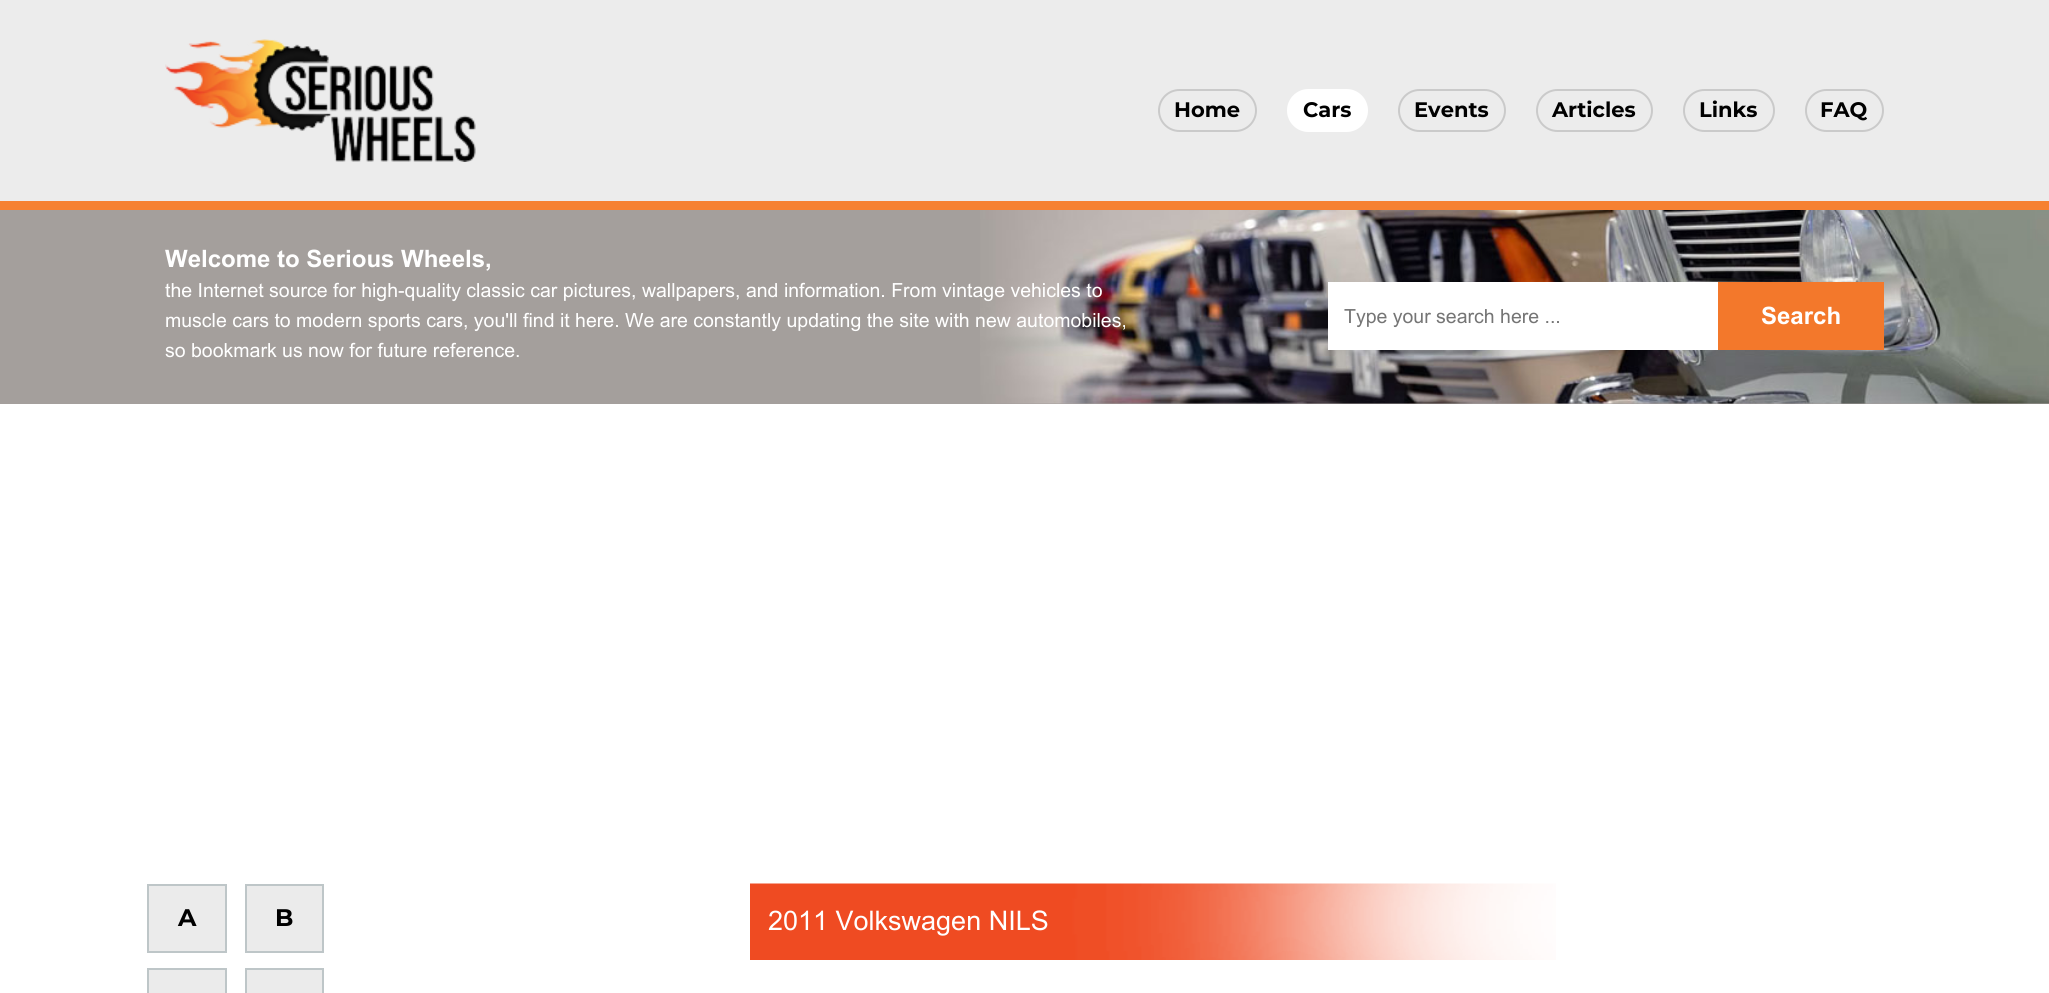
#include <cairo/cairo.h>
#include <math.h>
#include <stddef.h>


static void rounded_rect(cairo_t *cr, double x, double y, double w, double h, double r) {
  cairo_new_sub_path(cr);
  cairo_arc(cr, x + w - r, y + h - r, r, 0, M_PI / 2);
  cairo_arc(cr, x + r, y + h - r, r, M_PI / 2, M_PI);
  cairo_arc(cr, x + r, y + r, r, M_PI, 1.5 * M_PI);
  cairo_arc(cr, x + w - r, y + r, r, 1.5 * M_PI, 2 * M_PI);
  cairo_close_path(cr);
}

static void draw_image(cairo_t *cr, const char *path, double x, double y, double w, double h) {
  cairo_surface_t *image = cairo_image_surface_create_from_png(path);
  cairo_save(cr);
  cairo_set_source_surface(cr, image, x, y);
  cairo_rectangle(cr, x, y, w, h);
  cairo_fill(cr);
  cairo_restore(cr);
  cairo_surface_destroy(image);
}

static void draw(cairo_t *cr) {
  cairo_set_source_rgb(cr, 1, 1, 1);
  cairo_paint(cr);
  cairo_set_source_rgb(cr, 236 / 255.0, 236 / 255.0, 236 / 255.0);
  cairo_rectangle(cr, 0, 0, 2049, 201);
  cairo_fill(cr);
  draw_image(cr, "images/1.png", 165, 39, 311, 123);
  rounded_rect(cr, 1159, 90, 97, 41, 20.5);
  cairo_set_source_rgb(cr, 202 / 255.0, 202 / 255.0, 202 / 255.0);
  cairo_stroke(cr);
  cairo_set_source_rgb(cr, 1, 1, 1);
  rounded_rect(cr, 1288, 90, 79, 41, 20.5);
  cairo_fill_preserve(cr);
  cairo_stroke(cr);
  rounded_rect(cr, 1399, 90, 106, 41, 20.5);
  cairo_set_source_rgb(cr, 202 / 255.0, 202 / 255.0, 202 / 255.0);
  cairo_stroke(cr);
  rounded_rect(cr, 1537, 90, 115, 41, 20.5);
  cairo_stroke(cr);
  rounded_rect(cr, 1684, 90, 90, 41, 20.5);
  cairo_stroke(cr);
  rounded_rect(cr, 1806, 90, 77, 41, 20.5);
  cairo_stroke(cr);
  cairo_set_source_rgb(cr, 164 / 255.0, 159 / 255.0, 156 / 255.0);
  cairo_rectangle(cr, 0, 210, 2049, 194);
  cairo_fill(cr);
  draw_image(cr, "images/2.png", 980, 210, 1069, 194);
  cairo_set_source_rgb(cr, 246 / 255.0, 129 / 255.0, 49 / 255.0);
  cairo_rectangle(cr, 0, 201, 2049, 9);
  cairo_fill(cr);
  cairo_set_source_rgb(cr, 1, 1, 1);
  cairo_rectangle(cr, 1328, 282, 390, 68);
  cairo_fill(cr);
  cairo_set_source_rgb(cr, 243 / 255.0, 120 / 255.0, 43 / 255.0);
  cairo_rectangle(cr, 1718, 282, 166, 68);
  cairo_fill(cr);
  cairo_set_source_rgb(cr, 235 / 255.0, 235 / 255.0, 235 / 255.0);
  cairo_rectangle(cr, 148, 885, 78, 67);
  cairo_fill_preserve(cr);
  cairo_set_source_rgb(cr, 190 / 255.0, 198 / 255.0, 200 / 255.0);
  cairo_stroke(cr);
  cairo_set_source_rgb(cr, 235 / 255.0, 235 / 255.0, 235 / 255.0);
  cairo_rectangle(cr, 246, 885, 77, 67);
  cairo_fill_preserve(cr);
  cairo_set_source_rgb(cr, 190 / 255.0, 198 / 255.0, 200 / 255.0);
  cairo_stroke(cr);
  cairo_set_source_rgb(cr, 235 / 255.0, 235 / 255.0, 235 / 255.0);
  cairo_rectangle(cr, 148, 969, 78, 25);
  cairo_fill_preserve(cr);
  cairo_set_source_rgb(cr, 190 / 255.0, 198 / 255.0, 200 / 255.0);
  cairo_stroke(cr);
  cairo_set_source_rgb(cr, 235 / 255.0, 235 / 255.0, 235 / 255.0);
  cairo_rectangle(cr, 246, 969, 77, 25);
  cairo_fill_preserve(cr);
  cairo_set_source_rgb(cr, 190 / 255.0, 198 / 255.0, 200 / 255.0);
  cairo_stroke(cr);
  draw_image(cr, "images/3.png", 750, 883, 806, 77);
  cairo_select_font_face(cr, "Montserrat", CAIRO_FONT_SLANT_NORMAL, CAIRO_FONT_WEIGHT_BOLD);
  cairo_set_font_size(cr, 21);
  cairo_set_source_rgb(cr, 0, 0, 0);
  cairo_move_to(cr, 1174, 117);
  cairo_show_text(cr, "Home");
  cairo_move_to(cr, 1303, 117);
  cairo_show_text(cr, "Cars");
  cairo_move_to(cr, 1414, 117);
  cairo_show_text(cr, "Events");
  cairo_move_to(cr, 1552, 117);
  cairo_show_text(cr, "Articles");
  cairo_move_to(cr, 1699, 117);
  cairo_show_text(cr, "Links");
  cairo_move_to(cr, 1820, 117);
  cairo_show_text(cr, "FAQ");
  cairo_select_font_face(cr, "Arial", CAIRO_FONT_SLANT_NORMAL, CAIRO_FONT_WEIGHT_BOLD);
  cairo_set_font_size(cr, 24);
  cairo_set_source_rgb(cr, 1, 1, 1);
  cairo_move_to(cr, 165, 267);
  cairo_show_text(cr, "Welcome to Serious Wheels,");
  cairo_select_font_face(cr, "Arial", CAIRO_FONT_SLANT_NORMAL, CAIRO_FONT_WEIGHT_NORMAL);
  cairo_set_font_size(cr, 19.5);
  cairo_move_to(cr, 165, 297);
  cairo_show_text(cr, "the Internet source for high-quality classic car pictures, wallpapers, and information. From vintage vehicles to");
  cairo_move_to(cr, 165, 327);
  cairo_show_text(cr, "muscle cars to modern sports cars, you'll find it here. We are constantly updating the site with new automobiles,");
  cairo_move_to(cr, 165, 357);
  cairo_show_text(cr, "so bookmark us now for future reference.");
  cairo_set_source_rgb(cr, 117 / 255.0, 117 / 255.0, 117 / 255.0);
  cairo_move_to(cr, 1344, 323);
  cairo_show_text(cr, "Type your search here ...");
  cairo_select_font_face(cr, "Arial", CAIRO_FONT_SLANT_NORMAL, CAIRO_FONT_WEIGHT_BOLD);
  cairo_set_font_size(cr, 24);
  cairo_set_source_rgb(cr, 1, 1, 1);
  cairo_move_to(cr, 1761, 324);
  cairo_show_text(cr, "Search");
  cairo_select_font_face(cr, "Montserrat", CAIRO_FONT_SLANT_NORMAL, CAIRO_FONT_WEIGHT_BOLD);
  cairo_set_source_rgb(cr, 0, 0, 0);
  cairo_move_to(cr, 178, 926);
  cairo_show_text(cr, "A");
  cairo_move_to(cr, 275, 926);
  cairo_show_text(cr, "B");
  cairo_select_font_face(cr, "Arial", CAIRO_FONT_SLANT_NORMAL, CAIRO_FONT_WEIGHT_NORMAL);
  cairo_set_font_size(cr, 27);
  cairo_set_source_rgb(cr, 1, 1, 1);
  cairo_move_to(cr, 768, 930);
  cairo_show_text(cr, "2011 Volkswagen NILS");
}

int main(void) {
  cairo_surface_t *surface = cairo_image_surface_create(CAIRO_FORMAT_RGB24, 2049, 993);
  cairo_t *cr = cairo_create(surface);
  cairo_font_options_t *options = cairo_font_options_create();
  cairo_font_options_set_hint_metrics(options, CAIRO_HINT_METRICS_OFF);
  cairo_font_options_set_hint_style(options, CAIRO_HINT_STYLE_NONE);
  cairo_set_font_options(cr, options);
  cairo_set_miter_limit(cr, 4);
  draw(cr);
  cairo_surface_write_to_png(surface, "out.png");
  cairo_font_options_destroy(options);
  cairo_destroy(cr);
  cairo_surface_destroy(surface);
  return 0;
}
